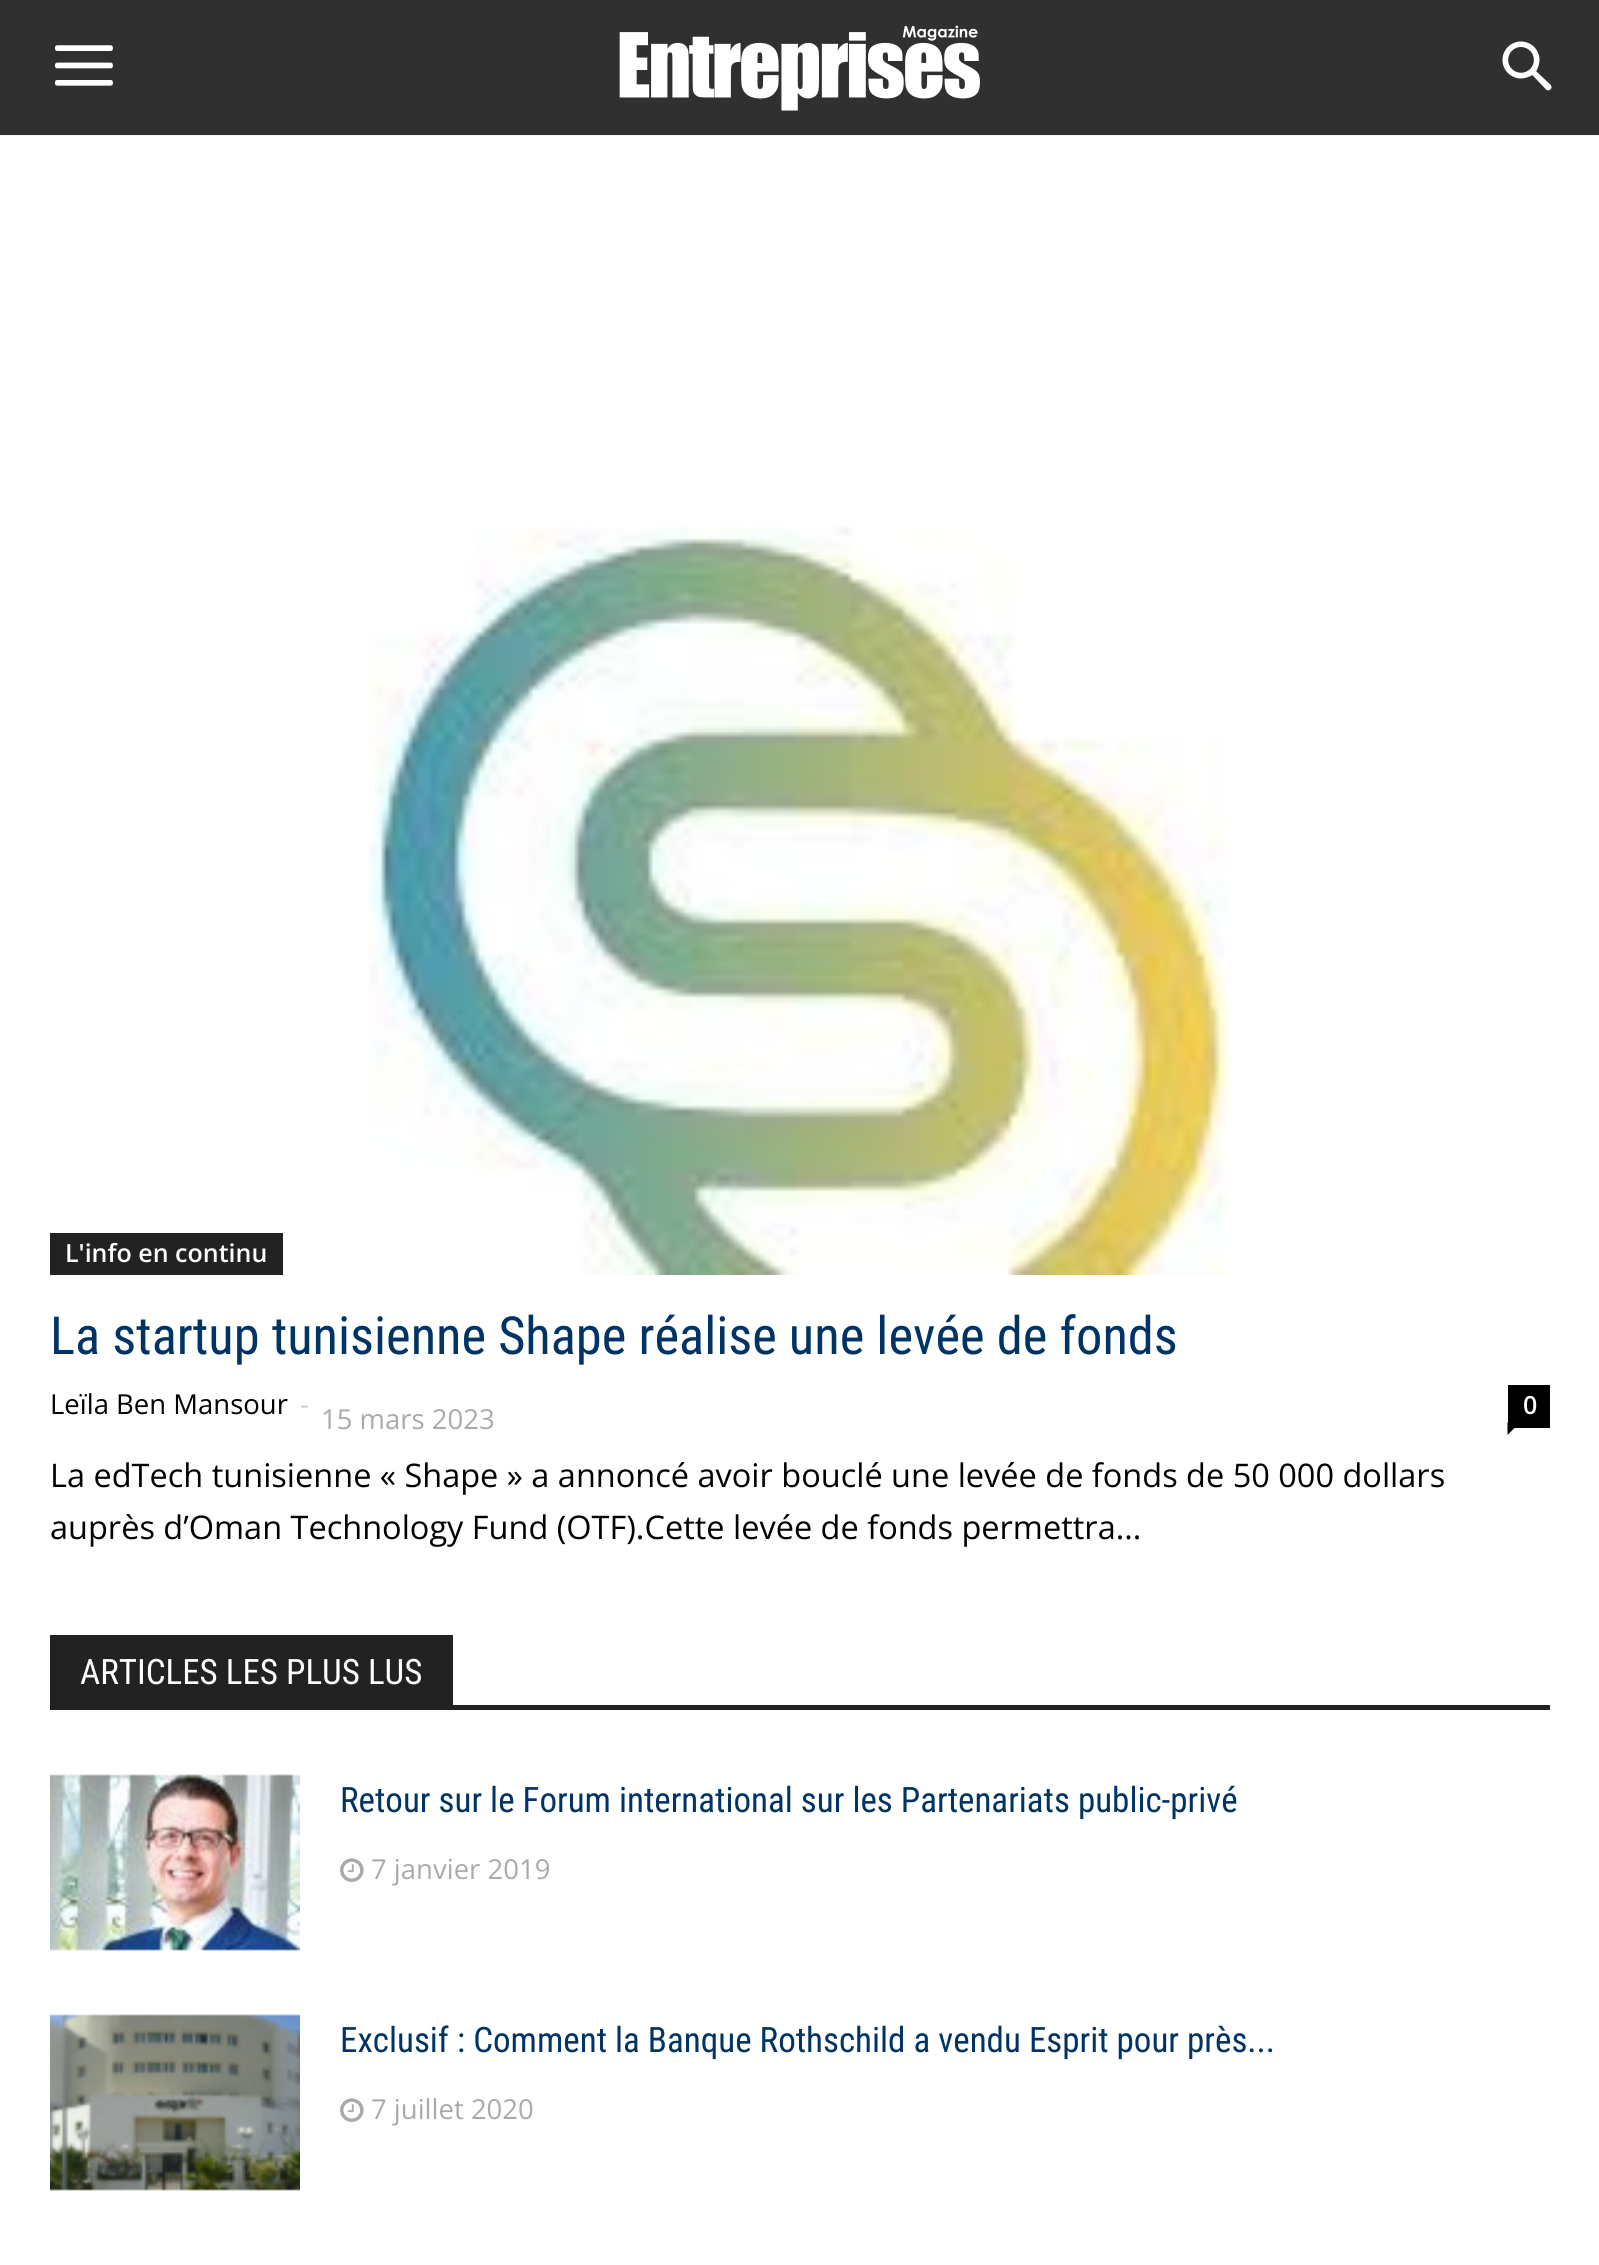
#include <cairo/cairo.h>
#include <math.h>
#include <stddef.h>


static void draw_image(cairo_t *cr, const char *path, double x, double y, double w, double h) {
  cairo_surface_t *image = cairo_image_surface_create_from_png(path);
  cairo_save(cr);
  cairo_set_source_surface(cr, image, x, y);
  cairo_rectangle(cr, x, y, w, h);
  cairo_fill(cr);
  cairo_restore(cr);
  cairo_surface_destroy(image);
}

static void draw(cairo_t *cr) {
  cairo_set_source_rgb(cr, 1, 1, 1);
  cairo_paint(cr);
  cairo_set_source_rgb(cr, 245 / 255.0, 245 / 255.0, 245 / 255.0);
  cairo_rectangle(cr, 0, 135, 1599, 1);
  cairo_fill(cr);
  cairo_set_source_rgb(cr, 48 / 255.0, 48 / 255.0, 48 / 255.0);
  cairo_rectangle(cr, 0, 0, 1599, 135);
  cairo_fill(cr);
  draw_image(cr, "images/1.png", 55, 45, 58, 41);
  draw_image(cr, "images/2.png", 619, 25, 361, 86);
  draw_image(cr, "images/3.png", 1502, 41, 50, 50);
  cairo_set_source_rgb(cr, 34 / 255.0, 34 / 255.0, 34 / 255.0);
  cairo_rectangle(cr, 50, 1233, 233, 42);
  cairo_fill(cr);
  draw_image(cr, "images/4.png", 367, 526, 865, 749);
  cairo_set_source_rgb(cr, 0, 0, 0);
  cairo_rectangle(cr, 1508, 1385, 42, 43);
  cairo_fill(cr);
  cairo_new_path(cr);
  cairo_move_to(cr, 1507.5, 1422.5);
  cairo_line_to(cr, 1520, 1422.5);
  cairo_line_to(cr, 1507.5, 1435);
  cairo_close_path(cr);
  cairo_fill(cr);
  cairo_set_source_rgb(cr, 34 / 255.0, 34 / 255.0, 34 / 255.0);
  cairo_rectangle(cr, 50, 1705, 1500, 5);
  cairo_fill(cr);
  cairo_rectangle(cr, 50, 1635, 403, 70);
  cairo_fill(cr);
  draw_image(cr, "images/5.png", 50, 1774, 250, 177);
  draw_image(cr, "images/6.png", 340, 1858, 24, 24);
  draw_image(cr, "images/7.png", 50, 2014, 250, 177);
  draw_image(cr, "images/6.png", 340, 2098, 24, 24);
  cairo_select_font_face(cr, "Open Sans SemiBold", CAIRO_FONT_SLANT_NORMAL, CAIRO_FONT_WEIGHT_NORMAL);
  cairo_set_font_size(cr, 25);
  cairo_set_source_rgb(cr, 1, 1, 1);
  cairo_move_to(cr, 65, 1262);
  cairo_show_text(cr, "L'info en continu");
  cairo_select_font_face(cr, "Roboto Condensed", CAIRO_FONT_SLANT_NORMAL, CAIRO_FONT_WEIGHT_NORMAL);
  cairo_set_font_size(cr, 52.5);
  cairo_set_source_rgb(cr, 0, 51 / 255.0, 102 / 255.0);
  cairo_move_to(cr, 50, 1354);
  cairo_show_text(cr, "La startup tunisienne Shape réalise une levée de fonds");
  cairo_select_font_face(cr, "Open Sans", CAIRO_FONT_SLANT_NORMAL, CAIRO_FONT_WEIGHT_NORMAL);
  cairo_set_font_size(cr, 27.5);
  cairo_set_source_rgb(cr, 0, 0, 0);
  cairo_move_to(cr, 50, 1414);
  cairo_show_text(cr, "Leïla Ben Mansour");
  cairo_set_source_rgb(cr, 204 / 255.0, 204 / 255.0, 204 / 255.0);
  cairo_move_to(cr, 300, 1414);
  cairo_show_text(cr, "-");
  cairo_select_font_face(cr, "Open Sans SemiBold", CAIRO_FONT_SLANT_NORMAL, CAIRO_FONT_WEIGHT_NORMAL);
  cairo_set_font_size(cr, 25);
  cairo_set_source_rgb(cr, 1, 1, 1);
  cairo_move_to(cr, 1523, 1414);
  cairo_show_text(cr, "0");
  cairo_select_font_face(cr, "Open Sans", CAIRO_FONT_SLANT_NORMAL, CAIRO_FONT_WEIGHT_NORMAL);
  cairo_set_font_size(cr, 27.5);
  cairo_set_source_rgb(cr, 170 / 255.0, 170 / 255.0, 170 / 255.0);
  cairo_move_to(cr, 321, 1429);
  cairo_show_text(cr, "15 mars 2023");
  cairo_set_font_size(cr, 32.5);
  cairo_set_source_rgb(cr, 0, 0, 0);
  cairo_move_to(cr, 50, 1487);
  cairo_show_text(cr, "La edTech tunisienne « Shape » a annoncé avoir bouclé une levée de fonds de 50 000 dollars");
  cairo_move_to(cr, 50, 1539);
  cairo_show_text(cr, "auprès d’Oman Technology Fund (OTF).Cette levée de fonds permettra...");
  cairo_select_font_face(cr, "Roboto Condensed", CAIRO_FONT_SLANT_NORMAL, CAIRO_FONT_WEIGHT_NORMAL);
  cairo_set_font_size(cr, 35);
  cairo_set_source_rgb(cr, 1, 1, 1);
  cairo_move_to(cr, 80, 1684);
  cairo_show_text(cr, "ARTICLES LES PLUS LUS");
  cairo_set_source_rgb(cr, 0, 51 / 255.0, 102 / 255.0);
  cairo_move_to(cr, 340, 1812);
  cairo_show_text(cr, "Retour sur le Forum international sur les Partenariats public-privé");
  cairo_select_font_face(cr, "Open Sans", CAIRO_FONT_SLANT_NORMAL, CAIRO_FONT_WEIGHT_NORMAL);
  cairo_set_font_size(cr, 27.5);
  cairo_set_source_rgb(cr, 170 / 255.0, 170 / 255.0, 170 / 255.0);
  cairo_move_to(cr, 371, 1879);
  cairo_show_text(cr, "7 janvier 2019");
  cairo_select_font_face(cr, "Roboto Condensed", CAIRO_FONT_SLANT_NORMAL, CAIRO_FONT_WEIGHT_NORMAL);
  cairo_set_font_size(cr, 35);
  cairo_set_source_rgb(cr, 0, 51 / 255.0, 102 / 255.0);
  cairo_move_to(cr, 340, 2052);
  cairo_show_text(cr, "Exclusif : Comment la Banque Rothschild a vendu Esprit pour près...");
  cairo_select_font_face(cr, "Open Sans", CAIRO_FONT_SLANT_NORMAL, CAIRO_FONT_WEIGHT_NORMAL);
  cairo_set_font_size(cr, 27.5);
  cairo_set_source_rgb(cr, 170 / 255.0, 170 / 255.0, 170 / 255.0);
  cairo_move_to(cr, 371, 2119);
  cairo_show_text(cr, "7 juillet 2020");
}

int main(void) {
  cairo_surface_t *surface = cairo_image_surface_create(CAIRO_FORMAT_RGB24, 1599, 2265);
  cairo_t *cr = cairo_create(surface);
  cairo_font_options_t *options = cairo_font_options_create();
  cairo_font_options_set_hint_metrics(options, CAIRO_HINT_METRICS_OFF);
  cairo_font_options_set_hint_style(options, CAIRO_HINT_STYLE_NONE);
  cairo_set_font_options(cr, options);
  cairo_set_miter_limit(cr, 4);
  draw(cr);
  cairo_surface_write_to_png(surface, "out.png");
  cairo_font_options_destroy(options);
  cairo_destroy(cr);
  cairo_surface_destroy(surface);
  return 0;
}
